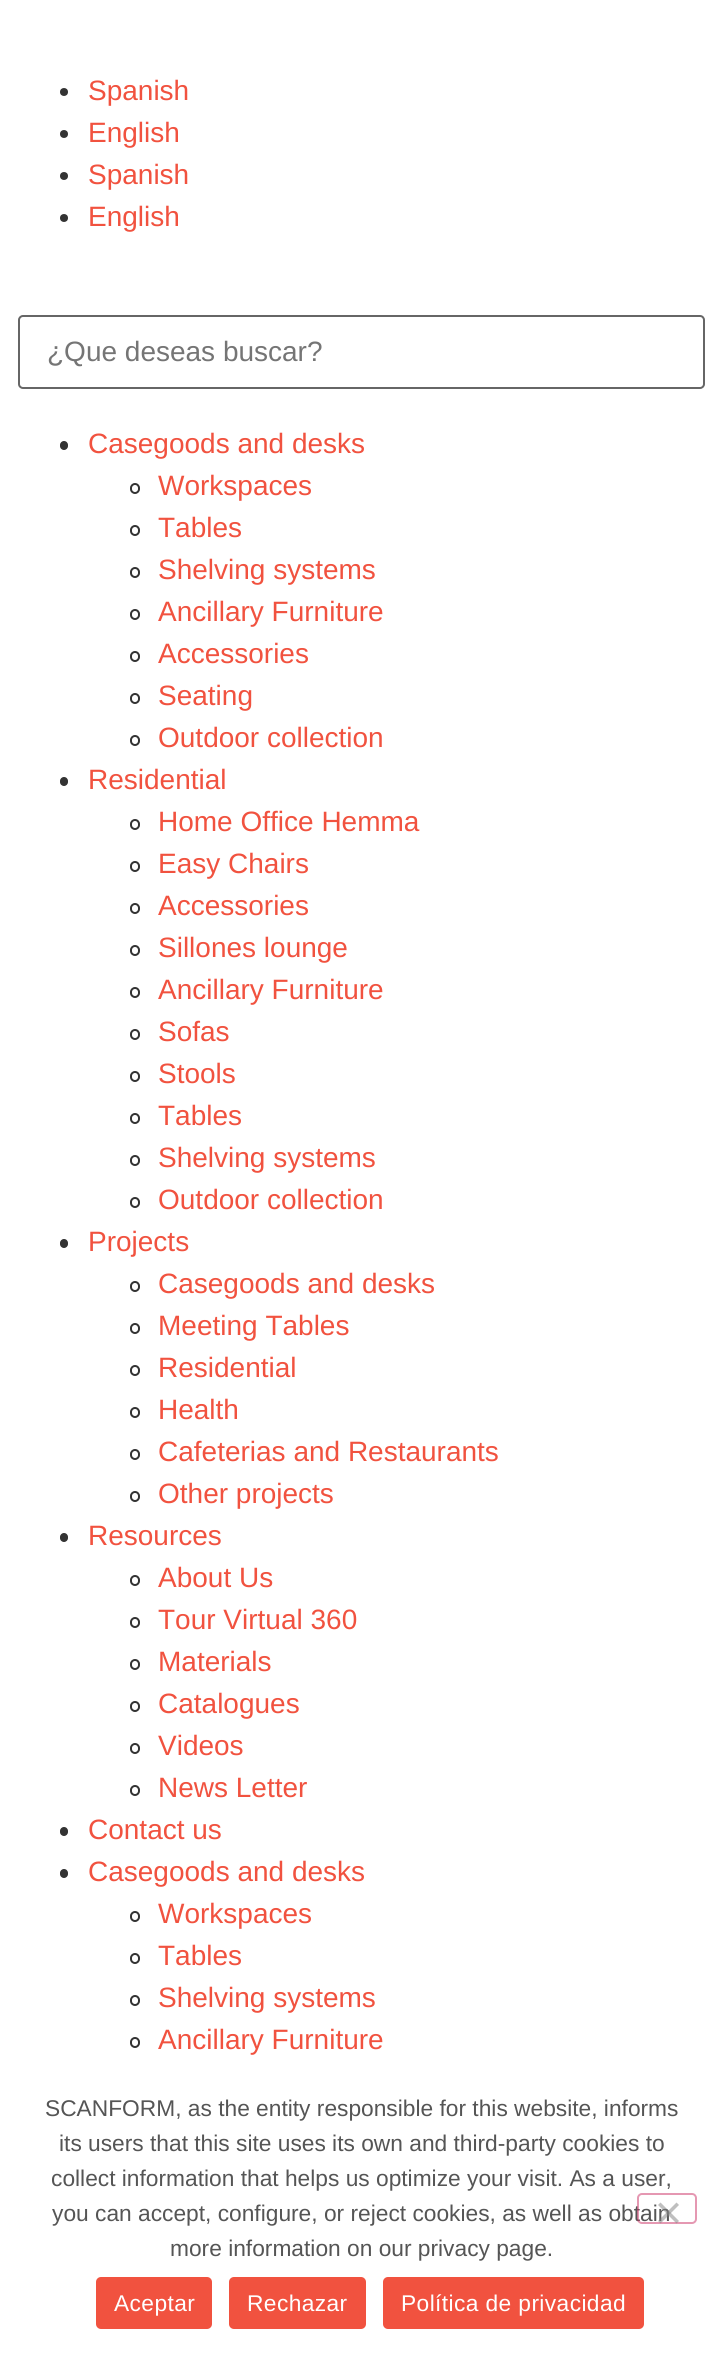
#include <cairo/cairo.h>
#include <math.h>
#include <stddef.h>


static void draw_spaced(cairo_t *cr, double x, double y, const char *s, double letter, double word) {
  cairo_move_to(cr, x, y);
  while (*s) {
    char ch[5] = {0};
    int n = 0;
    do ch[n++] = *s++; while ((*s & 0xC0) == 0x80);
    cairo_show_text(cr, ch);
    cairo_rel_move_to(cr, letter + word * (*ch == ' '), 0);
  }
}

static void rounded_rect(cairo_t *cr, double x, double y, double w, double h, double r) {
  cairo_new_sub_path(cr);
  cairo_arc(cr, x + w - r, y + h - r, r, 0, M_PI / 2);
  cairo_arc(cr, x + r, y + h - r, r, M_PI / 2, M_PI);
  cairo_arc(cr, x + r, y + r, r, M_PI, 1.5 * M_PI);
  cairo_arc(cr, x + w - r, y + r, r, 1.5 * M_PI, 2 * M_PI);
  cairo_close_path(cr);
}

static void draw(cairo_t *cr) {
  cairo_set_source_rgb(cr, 1, 1, 1);
  cairo_paint(cr);
  cairo_set_source_rgb(cr, 51 / 255.0, 51 / 255.0, 51 / 255.0);
  cairo_arc(cr, 64, 92, 4, 0, 2 * M_PI);
  cairo_fill(cr);
  cairo_arc(cr, 64, 134, 4, 0, 2 * M_PI);
  cairo_fill(cr);
  cairo_arc(cr, 64, 176, 4, 0, 2 * M_PI);
  cairo_fill(cr);
  cairo_arc(cr, 64, 218, 4, 0, 2 * M_PI);
  cairo_fill(cr);
  rounded_rect(cr, 19, 316, 685, 72, 4);
  cairo_set_source_rgb(cr, 102 / 255.0, 102 / 255.0, 102 / 255.0);
  cairo_stroke(cr);
  cairo_set_source_rgb(cr, 51 / 255.0, 51 / 255.0, 51 / 255.0);
  rounded_rect(cr, 60, 441, 8, 9, 4);
  cairo_fill(cr);
  rounded_rect(cr, 131, 484, 8, 9, 4);
  cairo_stroke(cr);
  rounded_rect(cr, 131, 526, 8, 9, 4);
  cairo_stroke(cr);
  rounded_rect(cr, 131, 568, 8, 9, 4);
  cairo_stroke(cr);
  rounded_rect(cr, 131, 610, 8, 9, 4);
  cairo_stroke(cr);
  rounded_rect(cr, 131, 652, 8, 9, 4);
  cairo_stroke(cr);
  rounded_rect(cr, 131, 694, 8, 9, 4);
  cairo_stroke(cr);
  rounded_rect(cr, 131, 736, 8, 9, 4);
  cairo_stroke(cr);
  rounded_rect(cr, 60, 777, 8, 9, 4);
  cairo_fill(cr);
  rounded_rect(cr, 131, 820, 8, 9, 4);
  cairo_stroke(cr);
  rounded_rect(cr, 131, 862, 8, 9, 4);
  cairo_stroke(cr);
  rounded_rect(cr, 131, 904, 8, 9, 4);
  cairo_stroke(cr);
  rounded_rect(cr, 131, 946, 8, 9, 4);
  cairo_stroke(cr);
  rounded_rect(cr, 131, 988, 8, 9, 4);
  cairo_stroke(cr);
  rounded_rect(cr, 131, 1030, 8, 9, 4);
  cairo_stroke(cr);
  rounded_rect(cr, 131, 1072, 8, 9, 4);
  cairo_stroke(cr);
  rounded_rect(cr, 131, 1114, 8, 9, 4);
  cairo_stroke(cr);
  rounded_rect(cr, 131, 1156, 8, 9, 4);
  cairo_stroke(cr);
  rounded_rect(cr, 131, 1198, 8, 9, 4);
  cairo_stroke(cr);
  rounded_rect(cr, 60, 1239, 8, 9, 4);
  cairo_fill(cr);
  rounded_rect(cr, 131, 1282, 8, 9, 4);
  cairo_stroke(cr);
  rounded_rect(cr, 131, 1324, 8, 9, 4);
  cairo_stroke(cr);
  rounded_rect(cr, 131, 1366, 8, 9, 4);
  cairo_stroke(cr);
  rounded_rect(cr, 131, 1408, 8, 9, 4);
  cairo_stroke(cr);
  rounded_rect(cr, 131, 1450, 8, 9, 4);
  cairo_stroke(cr);
  rounded_rect(cr, 131, 1492, 8, 9, 4);
  cairo_stroke(cr);
  rounded_rect(cr, 60, 1533, 8, 9, 4);
  cairo_fill(cr);
  rounded_rect(cr, 131, 1576, 8, 9, 4);
  cairo_stroke(cr);
  rounded_rect(cr, 131, 1618, 8, 9, 4);
  cairo_stroke(cr);
  rounded_rect(cr, 131, 1660, 8, 9, 4);
  cairo_stroke(cr);
  rounded_rect(cr, 131, 1702, 8, 9, 4);
  cairo_stroke(cr);
  rounded_rect(cr, 131, 1744, 8, 9, 4);
  cairo_stroke(cr);
  rounded_rect(cr, 131, 1786, 8, 9, 4);
  cairo_stroke(cr);
  rounded_rect(cr, 60, 1827, 8, 9, 4);
  cairo_fill(cr);
  rounded_rect(cr, 60, 1869, 8, 9, 4);
  cairo_fill(cr);
  rounded_rect(cr, 131, 1912, 8, 9, 4);
  cairo_stroke(cr);
  rounded_rect(cr, 131, 1954, 8, 9, 4);
  cairo_stroke(cr);
  rounded_rect(cr, 131, 1996, 8, 9, 4);
  cairo_stroke(cr);
  rounded_rect(cr, 131, 2038, 8, 9, 4);
  cairo_stroke(cr);
  cairo_set_source_rgb(cr, 241 / 255.0, 82 / 255.0, 63 / 255.0);
  rounded_rect(cr, 96, 2277, 116, 52, 5);
  cairo_fill(cr);
  rounded_rect(cr, 229, 2277, 137, 52, 5);
  cairo_fill(cr);
  rounded_rect(cr, 383, 2277, 261, 52, 5);
  cairo_fill(cr);
  cairo_select_font_face(cr, "Liberation Sans", CAIRO_FONT_SLANT_NORMAL, CAIRO_FONT_WEIGHT_NORMAL);
  cairo_set_font_size(cr, 28);
  cairo_move_to(cr, 88, 100);
  cairo_show_text(cr, "Spanish");
  cairo_move_to(cr, 88, 142);
  cairo_show_text(cr, "English");
  cairo_move_to(cr, 88, 184);
  cairo_show_text(cr, "Spanish");
  cairo_move_to(cr, 88, 226);
  cairo_show_text(cr, "English");
  cairo_set_source_rgb(cr, 117 / 255.0, 117 / 255.0, 117 / 255.0);
  cairo_move_to(cr, 47, 361);
  cairo_show_text(cr, "¿Que deseas buscar?");
  cairo_set_source_rgb(cr, 241 / 255.0, 82 / 255.0, 63 / 255.0);
  cairo_move_to(cr, 88, 453);
  cairo_show_text(cr, "Casegoods and desks");
  cairo_move_to(cr, 158, 495);
  cairo_show_text(cr, "Workspaces");
  cairo_move_to(cr, 158, 537);
  cairo_show_text(cr, "Tables");
  cairo_move_to(cr, 158, 579);
  cairo_show_text(cr, "Shelving systems");
  cairo_move_to(cr, 158, 621);
  cairo_show_text(cr, "Ancillary Furniture");
  cairo_move_to(cr, 158, 663);
  cairo_show_text(cr, "Accessories");
  cairo_move_to(cr, 158, 705);
  cairo_show_text(cr, "Seating");
  cairo_move_to(cr, 158, 747);
  cairo_show_text(cr, "Outdoor collection");
  cairo_move_to(cr, 88, 789);
  cairo_show_text(cr, "Residential");
  cairo_move_to(cr, 158, 831);
  cairo_show_text(cr, "Home Office Hemma");
  cairo_move_to(cr, 158, 873);
  cairo_show_text(cr, "Easy Chairs");
  cairo_move_to(cr, 158, 915);
  cairo_show_text(cr, "Accessories");
  cairo_move_to(cr, 158, 957);
  cairo_show_text(cr, "Sillones lounge");
  cairo_move_to(cr, 158, 999);
  cairo_show_text(cr, "Ancillary Furniture");
  cairo_move_to(cr, 158, 1041);
  cairo_show_text(cr, "Sofas");
  cairo_move_to(cr, 158, 1083);
  cairo_show_text(cr, "Stools");
  cairo_move_to(cr, 158, 1125);
  cairo_show_text(cr, "Tables");
  cairo_move_to(cr, 158, 1167);
  cairo_show_text(cr, "Shelving systems");
  cairo_move_to(cr, 158, 1209);
  cairo_show_text(cr, "Outdoor collection");
  cairo_move_to(cr, 88, 1251);
  cairo_show_text(cr, "Projects");
  cairo_move_to(cr, 158, 1293);
  cairo_show_text(cr, "Casegoods and desks");
  cairo_move_to(cr, 158, 1335);
  cairo_show_text(cr, "Meeting Tables");
  cairo_move_to(cr, 158, 1377);
  cairo_show_text(cr, "Residential");
  cairo_move_to(cr, 158, 1419);
  cairo_show_text(cr, "Health");
  cairo_move_to(cr, 158, 1461);
  cairo_show_text(cr, "Cafeterias and Restaurants");
  cairo_move_to(cr, 158, 1503);
  cairo_show_text(cr, "Other projects");
  cairo_move_to(cr, 88, 1545);
  cairo_show_text(cr, "Resources");
  cairo_move_to(cr, 158, 1587);
  cairo_show_text(cr, "About Us");
  cairo_move_to(cr, 158, 1629);
  cairo_show_text(cr, "Tour Virtual 360");
  cairo_move_to(cr, 158, 1671);
  cairo_show_text(cr, "Materials");
  cairo_move_to(cr, 158, 1713);
  cairo_show_text(cr, "Catalogues");
  cairo_move_to(cr, 158, 1755);
  cairo_show_text(cr, "Videos");
  cairo_move_to(cr, 158, 1797);
  cairo_show_text(cr, "News Letter");
  cairo_move_to(cr, 88, 1839);
  cairo_show_text(cr, "Contact us");
  cairo_move_to(cr, 88, 1881);
  cairo_show_text(cr, "Casegoods and desks");
  cairo_move_to(cr, 158, 1923);
  cairo_show_text(cr, "Workspaces");
  cairo_move_to(cr, 158, 1965);
  cairo_show_text(cr, "Tables");
  cairo_move_to(cr, 158, 2007);
  cairo_show_text(cr, "Shelving systems");
  cairo_move_to(cr, 158, 2049);
  cairo_show_text(cr, "Ancillary Furniture");
  cairo_set_font_size(cr, 22.75);
  cairo_set_source_rgb(cr, 85 / 255.0, 85 / 255.0, 85 / 255.0);
  cairo_move_to(cr, 45, 2116);
  cairo_show_text(cr, "SCANFORM, as the entity responsible for this website, informs");
  cairo_move_to(cr, 59, 2151);
  cairo_show_text(cr, "its users that this site uses its own and third-party cookies to");
  cairo_move_to(cr, 51, 2186);
  cairo_show_text(cr, "collect information that helps us optimize your visit. As a user,");
  cairo_move_to(cr, 52, 2221);
  cairo_show_text(cr, "you can accept, configure, or reject cookies, as well as obtain");
  cairo_move_to(cr, 170, 2256);
  cairo_show_text(cr, "more information on our privacy page.");
  rounded_rect(cr, 638, 2194, 58, 29, 4);
  cairo_set_source_rgba(cr, 204 / 255.0, 51 / 255.0, 102 / 255.0, 0.5);
  cairo_stroke(cr);
  cairo_set_source_rgba(cr, 128 / 255.0, 128 / 255.0, 128 / 255.0, 0.5);
  cairo_new_path(cr);
  cairo_move_to(cr, 676.5, 2202.5);
  cairo_line_to(cr, 679, 2205);
  cairo_line_to(cr, 660.5, 2223.5);
  cairo_line_to(cr, 658, 2221);
  cairo_close_path(cr);
  cairo_fill(cr);
  cairo_new_path(cr);
  cairo_move_to(cr, 658, 2205);
  cairo_line_to(cr, 660.5, 2202.5);
  cairo_line_to(cr, 679, 2221);
  cairo_line_to(cr, 676.5, 2223.5);
  cairo_close_path(cr);
  cairo_fill(cr);
  cairo_set_source_rgb(cr, 1, 1, 1);
  draw_spaced(cr, 114, 2311, "Aceptar", 0.4, 0);
  draw_spaced(cr, 247, 2311, "Rechazar", 0.4, 0);
  draw_spaced(cr, 401, 2311, "Política de privacidad", 0.4, 0);
}

int main(void) {
  cairo_surface_t *surface = cairo_image_surface_create(CAIRO_FORMAT_RGB24, 722, 2354);
  cairo_t *cr = cairo_create(surface);
  cairo_font_options_t *options = cairo_font_options_create();
  cairo_font_options_set_hint_metrics(options, CAIRO_HINT_METRICS_OFF);
  cairo_font_options_set_hint_style(options, CAIRO_HINT_STYLE_NONE);
  cairo_set_font_options(cr, options);
  cairo_set_miter_limit(cr, 4);
  draw(cr);
  cairo_surface_write_to_png(surface, "out.png");
  cairo_font_options_destroy(options);
  cairo_destroy(cr);
  cairo_surface_destroy(surface);
  return 0;
}
